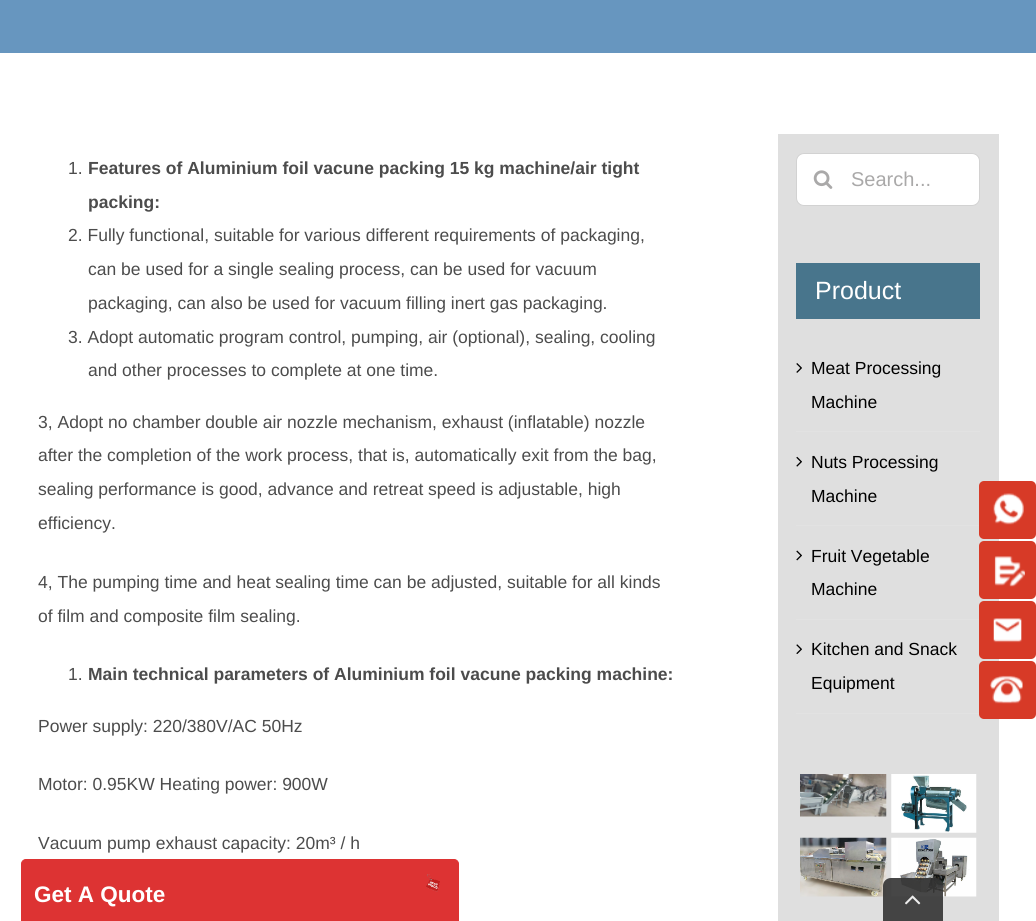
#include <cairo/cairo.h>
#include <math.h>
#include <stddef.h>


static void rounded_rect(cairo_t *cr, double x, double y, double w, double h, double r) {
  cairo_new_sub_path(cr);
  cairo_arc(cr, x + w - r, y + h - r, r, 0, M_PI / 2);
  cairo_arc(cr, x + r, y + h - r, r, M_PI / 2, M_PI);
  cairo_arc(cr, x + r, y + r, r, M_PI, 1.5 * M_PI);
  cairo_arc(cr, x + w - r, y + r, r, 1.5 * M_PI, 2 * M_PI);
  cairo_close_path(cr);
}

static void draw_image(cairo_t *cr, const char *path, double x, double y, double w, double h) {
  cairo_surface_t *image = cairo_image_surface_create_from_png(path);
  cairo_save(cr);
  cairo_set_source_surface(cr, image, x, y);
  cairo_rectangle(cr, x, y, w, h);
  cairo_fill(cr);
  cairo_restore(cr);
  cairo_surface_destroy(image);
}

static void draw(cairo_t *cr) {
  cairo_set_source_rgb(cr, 1, 1, 1);
  cairo_paint(cr);
  cairo_set_source_rgb(cr, 103 / 255.0, 150 / 255.0, 191 / 255.0);
  cairo_rectangle(cr, 0, 0, 1036, 53);
  cairo_fill(cr);
  cairo_set_source_rgb(cr, 223 / 255.0, 223 / 255.0, 223 / 255.0);
  cairo_rectangle(cr, 778, 134, 221, 787);
  cairo_fill(cr);
  cairo_set_source_rgb(cr, 1, 1, 1);
  rounded_rect(cr, 796.5, 153.5, 183, 52, 7.5);
  cairo_fill_preserve(cr);
  cairo_set_source_rgb(cr, 210 / 255.0, 210 / 255.0, 210 / 255.0);
  cairo_set_line_width(cr, 1);
  cairo_stroke(cr);
  draw_image(cr, "images/1.png", 813, 170, 20, 19);
  cairo_set_source_rgb(cr, 72 / 255.0, 117 / 255.0, 140 / 255.0);
  cairo_rectangle(cr, 796, 263, 184, 56);
  cairo_fill(cr);
  cairo_set_source_rgb(cr, 226 / 255.0, 226 / 255.0, 226 / 255.0);
  cairo_rectangle(cr, 796, 431, 184, 1);
  cairo_fill(cr);
  draw_image(cr, "images/2.png", 796, 363, 6, 10);
  cairo_rectangle(cr, 796, 525, 184, 1);
  cairo_fill(cr);
  draw_image(cr, "images/3.png", 796, 456, 6, 11);
  cairo_rectangle(cr, 796, 619, 184, 1);
  cairo_fill(cr);
  draw_image(cr, "images/4.png", 796, 550, 6, 11);
  cairo_rectangle(cr, 796, 713, 184, 1);
  cairo_fill(cr);
  draw_image(cr, "images/5.png", 796, 644, 6, 10);
  draw_image(cr, "images/6.png", 800, 774, 87, 43);
  draw_image(cr, "images/7.png", 891, 774, 86, 59);
  draw_image(cr, "images/8.png", 800, 837, 87, 60);
  draw_image(cr, "images/9.png", 891, 837, 86, 60);
  cairo_set_source_rgb(cr, 215 / 255.0, 58 / 255.0, 39 / 255.0);
  rounded_rect(cr, 979, 481, 57, 58, 5);
  cairo_fill(cr);
  draw_image(cr, "images/10.png", 993, 493, 31, 32);
  rounded_rect(cr, 979, 541, 57, 58, 5);
  cairo_fill(cr);
  draw_image(cr, "images/11.png", 994, 556, 31, 31);
  rounded_rect(cr, 979, 601, 57, 58, 5);
  cairo_fill(cr);
  draw_image(cr, "images/12.png", 993, 618, 29, 25);
  rounded_rect(cr, 979, 661, 57, 58, 5);
  cairo_fill(cr);
  draw_image(cr, "images/13.png", 990, 675, 33, 29);
  cairo_set_source_rgb(cr, 221 / 255.0, 51 / 255.0, 51 / 255.0);
  cairo_new_path(cr);
  cairo_move_to(cr, 26, 859.5);
  cairo_line_to(cr, 454, 859.5);
  cairo_curve_to(cr, 456.5, 859.5, 458.5, 861.5, 458.5, 864);
  cairo_line_to(cr, 458.5, 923.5);
  cairo_line_to(cr, 21.5, 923.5);
  cairo_line_to(cr, 21.5, 864);
  cairo_curve_to(cr, 21.5, 861.5, 23.5, 859.5, 26, 859.5);
  cairo_close_path(cr);
  cairo_fill_preserve(cr);
  cairo_stroke(cr);
  draw_image(cr, "images/14.png", 426, 874, 14, 18);
  cairo_set_source_rgba(cr, 51 / 255.0, 51 / 255.0, 51 / 255.0, 0.9);
  cairo_new_path(cr);
  cairo_move_to(cr, 891, 878);
  cairo_line_to(cr, 935, 878);
  cairo_curve_to(cr, 939.5, 878, 943, 881.5, 943, 886);
  cairo_line_to(cr, 943, 921);
  cairo_line_to(cr, 883, 921);
  cairo_line_to(cr, 883, 886);
  cairo_curve_to(cr, 883, 881.5, 886.5, 878, 891, 878);
  cairo_close_path(cr);
  cairo_fill(cr);
  draw_image(cr, "images/15.png", 905, 895, 16, 10);
  cairo_select_font_face(cr, "Liberation Sans", CAIRO_FONT_SLANT_NORMAL, CAIRO_FONT_WEIGHT_NORMAL);
  cairo_set_font_size(cr, 17.5);
  cairo_set_source_rgb(cr, 76 / 255.0, 76 / 255.0, 76 / 255.0);
  cairo_move_to(cr, 68, 174);
  cairo_show_text(cr, "1.");
  cairo_select_font_face(cr, "Liberation Sans", CAIRO_FONT_SLANT_NORMAL, CAIRO_FONT_WEIGHT_BOLD);
  cairo_move_to(cr, 88, 174);
  cairo_show_text(cr, "Features of Aluminium foil vacune packing 15 kg machine/air tight");
  cairo_move_to(cr, 88, 208);
  cairo_show_text(cr, "packing:");
  cairo_select_font_face(cr, "Liberation Sans", CAIRO_FONT_SLANT_NORMAL, CAIRO_FONT_WEIGHT_NORMAL);
  cairo_move_to(cr, 68, 241);
  cairo_show_text(cr, "2. Fully functional, suitable for various different requirements of packaging,");
  cairo_move_to(cr, 88, 275);
  cairo_show_text(cr, "can be used for a single sealing process, can be used for vacuum");
  cairo_move_to(cr, 88, 309);
  cairo_show_text(cr, "packaging, can also be used for vacuum filling inert gas packaging.");
  cairo_move_to(cr, 68, 343);
  cairo_show_text(cr, "3. Adopt automatic program control, pumping, air (optional), sealing, cooling");
  cairo_move_to(cr, 88, 376);
  cairo_show_text(cr, "and other processes to complete at one time.");
  cairo_move_to(cr, 38, 428);
  cairo_show_text(cr, "3, Adopt no chamber double air nozzle mechanism, exhaust (inflatable) nozzle");
  cairo_move_to(cr, 38, 461);
  cairo_show_text(cr, "after the completion of the work process, that is, automatically exit from the bag,");
  cairo_move_to(cr, 38, 495);
  cairo_show_text(cr, "sealing performance is good, advance and retreat speed is adjustable, high");
  cairo_move_to(cr, 38, 529);
  cairo_show_text(cr, "efficiency.");
  cairo_move_to(cr, 38, 588);
  cairo_show_text(cr, "4, The pumping time and heat sealing time can be adjusted, suitable for all kinds");
  cairo_move_to(cr, 38, 622);
  cairo_show_text(cr, "of film and composite film sealing.");
  cairo_move_to(cr, 68, 680);
  cairo_show_text(cr, "1.");
  cairo_select_font_face(cr, "Liberation Sans", CAIRO_FONT_SLANT_NORMAL, CAIRO_FONT_WEIGHT_BOLD);
  cairo_move_to(cr, 88, 680);
  cairo_show_text(cr, "Main technical parameters of Aluminium foil vacune packing machine:");
  cairo_select_font_face(cr, "Liberation Sans", CAIRO_FONT_SLANT_NORMAL, CAIRO_FONT_WEIGHT_NORMAL);
  cairo_move_to(cr, 38, 732);
  cairo_show_text(cr, "Power supply: 220/380V/AC 50Hz");
  cairo_move_to(cr, 38, 790);
  cairo_show_text(cr, "Motor: 0.95KW Heating power: 900W");
  cairo_move_to(cr, 38, 849);
  cairo_show_text(cr, "Vacuum pump exhaust capacity: 20m³ / h");
  cairo_set_font_size(cr, 20);
  cairo_set_source_rgb(cr, 170 / 255.0, 169 / 255.0, 169 / 255.0);
  cairo_move_to(cr, 851, 186);
  cairo_show_text(cr, "Search...");
  cairo_set_font_size(cr, 25);
  cairo_set_source_rgb(cr, 1, 1, 1);
  cairo_move_to(cr, 815, 299);
  cairo_show_text(cr, "Product");
  cairo_set_font_size(cr, 17.5);
  cairo_set_source_rgb(cr, 0, 0, 0);
  cairo_move_to(cr, 811, 374);
  cairo_show_text(cr, "Meat Processing");
  cairo_move_to(cr, 811, 408);
  cairo_show_text(cr, "Machine");
  cairo_move_to(cr, 811, 468);
  cairo_show_text(cr, "Nuts Processing");
  cairo_move_to(cr, 811, 502);
  cairo_show_text(cr, "Machine");
  cairo_move_to(cr, 811, 562);
  cairo_show_text(cr, "Fruit Vegetable");
  cairo_move_to(cr, 811, 595);
  cairo_show_text(cr, "Machine");
  cairo_move_to(cr, 811, 655);
  cairo_show_text(cr, "Kitchen and Snack");
  cairo_move_to(cr, 811, 689);
  cairo_show_text(cr, "Equipment");
  cairo_select_font_face(cr, "Liberation Sans", CAIRO_FONT_SLANT_NORMAL, CAIRO_FONT_WEIGHT_BOLD);
  cairo_set_font_size(cr, 22.5);
  cairo_set_source_rgb(cr, 1, 1, 1);
  cairo_move_to(cr, 34, 902);
  cairo_show_text(cr, "Get A Quote");
}

int main(void) {
  cairo_surface_t *surface = cairo_image_surface_create(CAIRO_FORMAT_RGB24, 1036, 921);
  cairo_t *cr = cairo_create(surface);
  cairo_font_options_t *options = cairo_font_options_create();
  cairo_font_options_set_hint_metrics(options, CAIRO_HINT_METRICS_OFF);
  cairo_font_options_set_hint_style(options, CAIRO_HINT_STYLE_NONE);
  cairo_set_font_options(cr, options);
  cairo_set_miter_limit(cr, 4);
  draw(cr);
  cairo_surface_write_to_png(surface, "out.png");
  cairo_font_options_destroy(options);
  cairo_destroy(cr);
  cairo_surface_destroy(surface);
  return 0;
}
